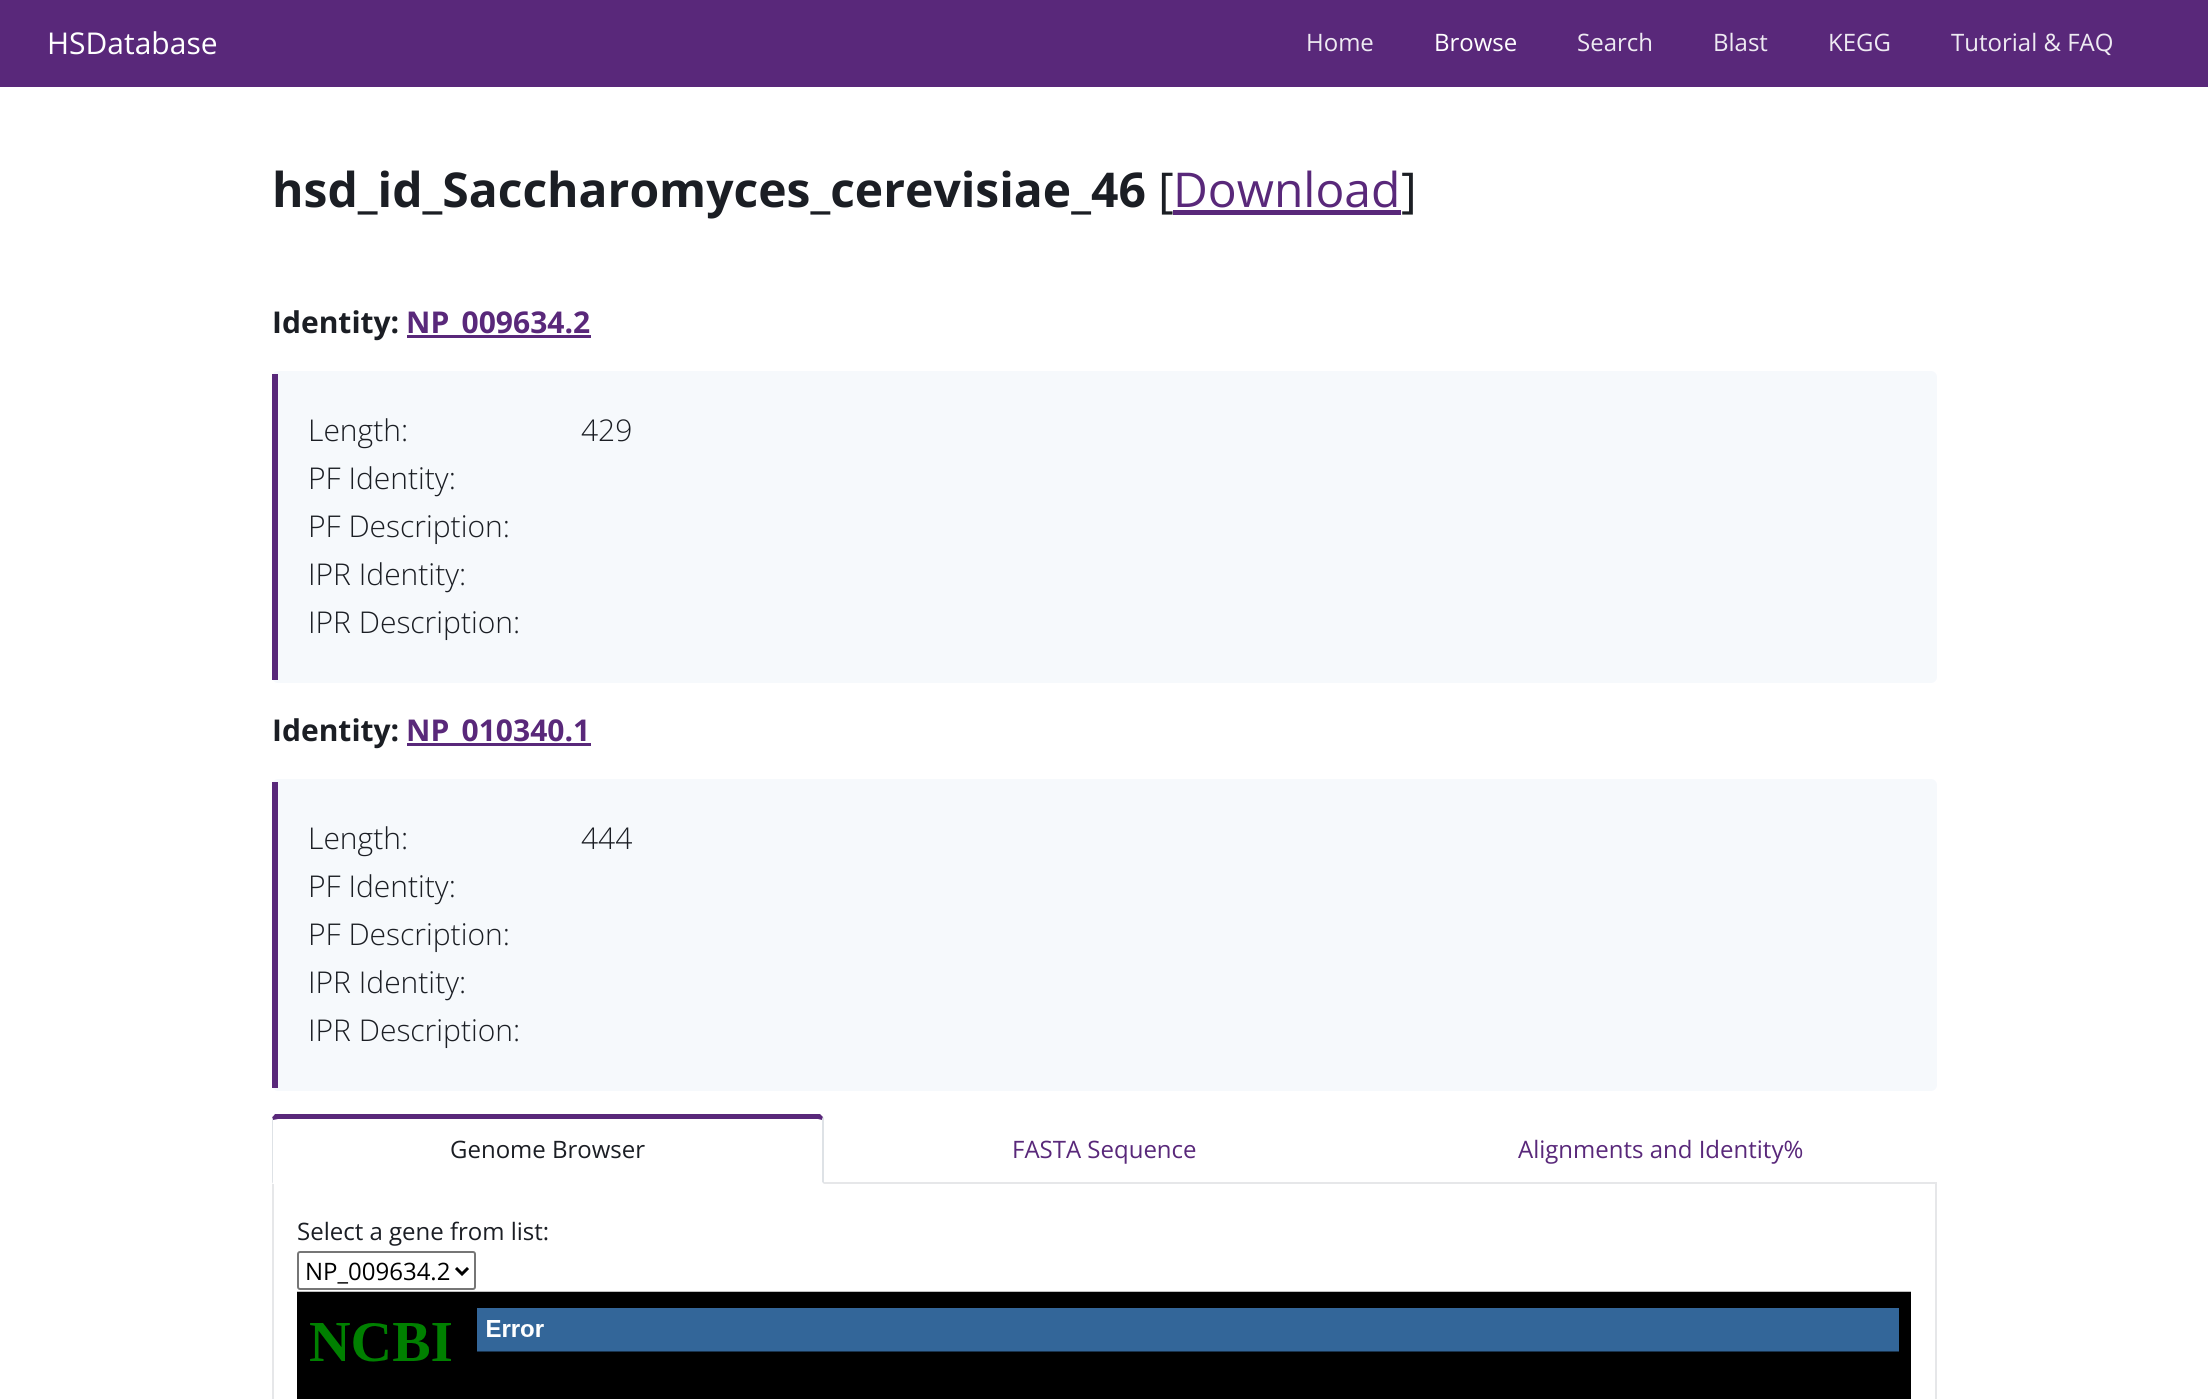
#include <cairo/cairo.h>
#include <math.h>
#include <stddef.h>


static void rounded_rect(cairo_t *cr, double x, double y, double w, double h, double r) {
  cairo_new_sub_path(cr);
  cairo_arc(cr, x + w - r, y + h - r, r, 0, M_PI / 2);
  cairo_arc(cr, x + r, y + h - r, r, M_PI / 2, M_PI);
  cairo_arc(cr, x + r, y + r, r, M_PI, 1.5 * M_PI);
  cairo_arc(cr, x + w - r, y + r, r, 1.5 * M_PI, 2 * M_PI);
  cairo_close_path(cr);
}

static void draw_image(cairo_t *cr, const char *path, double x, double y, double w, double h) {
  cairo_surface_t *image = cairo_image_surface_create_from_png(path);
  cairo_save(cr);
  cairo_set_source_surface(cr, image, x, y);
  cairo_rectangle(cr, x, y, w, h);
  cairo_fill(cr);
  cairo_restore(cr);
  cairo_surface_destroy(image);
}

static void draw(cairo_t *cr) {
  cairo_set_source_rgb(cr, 1, 1, 1);
  cairo_paint(cr);
  cairo_set_source_rgb(cr, 89 / 255.0, 40 / 255.0, 122 / 255.0);
  cairo_rectangle(cr, 0, 0, 2208, 87);
  cairo_fill(cr);
  cairo_rectangle(cr, 1173, 210, 228, 5);
  cairo_fill(cr);
  cairo_rectangle(cr, 407, 335, 184, 3);
  cairo_fill(cr);
  cairo_set_source_rgb(cr, 246 / 255.0, 249 / 255.0, 252 / 255.0);
  rounded_rect(cr, 272, 371, 1665, 312, 6);
  cairo_fill(cr);
  cairo_set_source_rgb(cr, 89 / 255.0, 40 / 255.0, 122 / 255.0);
  cairo_rectangle(cr, 272, 374, 6, 306);
  cairo_fill(cr);
  cairo_rectangle(cr, 407, 743, 184, 3);
  cairo_fill(cr);
  cairo_set_source_rgb(cr, 246 / 255.0, 249 / 255.0, 252 / 255.0);
  rounded_rect(cr, 272, 779, 1665, 312, 6);
  cairo_fill(cr);
  cairo_set_source_rgb(cr, 89 / 255.0, 40 / 255.0, 122 / 255.0);
  cairo_rectangle(cr, 272, 782, 6, 306);
  cairo_fill(cr);
  cairo_new_path(cr);
  cairo_move_to(cr, 278, 1119);
  cairo_line_to(cr, 273, 1120);
  cairo_line_to(cr, 272, 1117);
  cairo_curve_to(cr, 273, 1117, 274, 1115, 275, 1114);
  cairo_line_to(cr, 820, 1114);
  cairo_line_to(cr, 823, 1117);
  cairo_line_to(cr, 822, 1120);
  cairo_line_to(cr, 818, 1119);
  cairo_close_path(cr);
  cairo_fill(cr);
  cairo_rectangle(cr, 273, 1183, 1663, 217);
  cairo_set_source_rgb(cr, 230 / 255.0, 231 / 255.0, 233 / 255.0);
  cairo_stroke(cr);
  cairo_set_source_rgb(cr, 222 / 255.0, 226 / 255.0, 230 / 255.0);
  cairo_new_path(cr);
  cairo_move_to(cr, 823, 1117);
  cairo_line_to(cr, 824, 1118);
  cairo_line_to(cr, 824, 1184);
  cairo_line_to(cr, 822, 1182);
  cairo_line_to(cr, 822, 1120);
  cairo_close_path(cr);
  cairo_fill(cr);
  cairo_set_source_rgb(cr, 1, 1, 1);
  cairo_new_path(cr);
  cairo_move_to(cr, 824, 1184);
  cairo_line_to(cr, 272, 1184);
  cairo_line_to(cr, 273, 1182);
  cairo_line_to(cr, 822, 1182);
  cairo_close_path(cr);
  cairo_fill(cr);
  cairo_set_source_rgb(cr, 222 / 255.0, 226 / 255.0, 230 / 255.0);
  cairo_new_path(cr);
  cairo_move_to(cr, 272, 1183);
  cairo_line_to(cr, 272, 1120);
  cairo_line_to(cr, 272, 1117);
  cairo_line_to(cr, 273, 1120);
  cairo_line_to(cr, 273, 1182);
  cairo_close_path(cr);
  cairo_fill(cr);
  rounded_rect(cr, 298, 1252, 177, 37, 2);
  cairo_set_source_rgb(cr, 118 / 255.0, 118 / 255.0, 118 / 255.0);
  cairo_stroke(cr);
  cairo_new_path(cr);
  cairo_move_to(cr, 456, 1268);
  cairo_line_to(cr, 462, 1274);
  cairo_line_to(cr, 468, 1268);
  cairo_set_source_rgb(cr, 0, 0, 0);
  cairo_set_line_width(cr, 3);
  cairo_stroke(cr);
  draw_image(cr, "images/1.png", 297, 1291, 1614, 108);
  cairo_select_font_face(cr, "Open Sans", CAIRO_FONT_SLANT_NORMAL, CAIRO_FONT_WEIGHT_NORMAL);
  cairo_set_font_size(cr, 30);
  cairo_set_source_rgb(cr, 1, 1, 1);
  cairo_move_to(cr, 47, 54);
  cairo_show_text(cr, "HSDatabase");
  cairo_set_font_size(cr, 24);
  cairo_set_source_rgb(cr, 238 / 255.0, 234 / 255.0, 242 / 255.0);
  cairo_move_to(cr, 1306, 51);
  cairo_show_text(cr, "Home");
  cairo_set_source_rgb(cr, 1, 1, 1);
  cairo_move_to(cr, 1434, 51);
  cairo_show_text(cr, "Browse");
  cairo_set_source_rgb(cr, 238 / 255.0, 234 / 255.0, 242 / 255.0);
  cairo_move_to(cr, 1577, 51);
  cairo_show_text(cr, "Search");
  cairo_move_to(cr, 1713, 51);
  cairo_show_text(cr, "Blast");
  cairo_move_to(cr, 1828, 51);
  cairo_show_text(cr, "KEGG");
  cairo_move_to(cr, 1951, 51);
  cairo_show_text(cr, "Tutorial & FAQ");
  cairo_select_font_face(cr, "Open Sans", CAIRO_FONT_SLANT_NORMAL, CAIRO_FONT_WEIGHT_BOLD);
  cairo_set_font_size(cr, 48);
  cairo_set_source_rgb(cr, 27 / 255.0, 30 / 255.0, 36 / 255.0);
  cairo_move_to(cr, 272, 207);
  cairo_show_text(cr, "hsd_id_Saccharomyces_cerevisiae_46");
  cairo_select_font_face(cr, "Open Sans", CAIRO_FONT_SLANT_NORMAL, CAIRO_FONT_WEIGHT_NORMAL);
  cairo_move_to(cr, 1158, 207);
  cairo_show_text(cr, "[");
  cairo_set_source_rgb(cr, 89 / 255.0, 40 / 255.0, 122 / 255.0);
  cairo_move_to(cr, 1173, 207);
  cairo_show_text(cr, "Download");
  cairo_set_source_rgb(cr, 27 / 255.0, 30 / 255.0, 36 / 255.0);
  cairo_move_to(cr, 1401, 207);
  cairo_show_text(cr, "]");
  cairo_select_font_face(cr, "Open Sans", CAIRO_FONT_SLANT_NORMAL, CAIRO_FONT_WEIGHT_BOLD);
  cairo_set_font_size(cr, 30);
  cairo_move_to(cr, 272, 333);
  cairo_show_text(cr, "Identity:");
  cairo_set_source_rgb(cr, 89 / 255.0, 40 / 255.0, 122 / 255.0);
  cairo_move_to(cr, 406, 333);
  cairo_show_text(cr, "NP_009634.2");
  cairo_select_font_face(cr, "Open Sans Light", CAIRO_FONT_SLANT_NORMAL, CAIRO_FONT_WEIGHT_NORMAL);
  cairo_set_source_rgb(cr, 27 / 255.0, 30 / 255.0, 36 / 255.0);
  cairo_move_to(cr, 308, 441);
  cairo_show_text(cr, "Length:");
  cairo_move_to(cr, 581, 441);
  cairo_show_text(cr, "429");
  cairo_move_to(cr, 308, 489);
  cairo_show_text(cr, "PF Identity:");
  cairo_move_to(cr, 308, 537);
  cairo_show_text(cr, "PF Description:");
  cairo_move_to(cr, 308, 585);
  cairo_show_text(cr, "IPR Identity:");
  cairo_move_to(cr, 308, 633);
  cairo_show_text(cr, "IPR Description:");
  cairo_select_font_face(cr, "Open Sans", CAIRO_FONT_SLANT_NORMAL, CAIRO_FONT_WEIGHT_BOLD);
  cairo_move_to(cr, 272, 741);
  cairo_show_text(cr, "Identity:");
  cairo_set_source_rgb(cr, 89 / 255.0, 40 / 255.0, 122 / 255.0);
  cairo_move_to(cr, 406, 741);
  cairo_show_text(cr, "NP_010340.1");
  cairo_select_font_face(cr, "Open Sans Light", CAIRO_FONT_SLANT_NORMAL, CAIRO_FONT_WEIGHT_NORMAL);
  cairo_set_source_rgb(cr, 27 / 255.0, 30 / 255.0, 36 / 255.0);
  cairo_move_to(cr, 308, 849);
  cairo_show_text(cr, "Length:");
  cairo_move_to(cr, 581, 849);
  cairo_show_text(cr, "444");
  cairo_move_to(cr, 308, 897);
  cairo_show_text(cr, "PF Identity:");
  cairo_move_to(cr, 308, 945);
  cairo_show_text(cr, "PF Description:");
  cairo_move_to(cr, 308, 993);
  cairo_show_text(cr, "IPR Identity:");
  cairo_move_to(cr, 308, 1041);
  cairo_show_text(cr, "IPR Description:");
  cairo_select_font_face(cr, "Open Sans", CAIRO_FONT_SLANT_NORMAL, CAIRO_FONT_WEIGHT_NORMAL);
  cairo_set_font_size(cr, 24);
  cairo_move_to(cr, 450, 1158);
  cairo_show_text(cr, "Genome Browser");
  cairo_set_source_rgb(cr, 89 / 255.0, 40 / 255.0, 122 / 255.0);
  cairo_move_to(cr, 1012, 1158);
  cairo_show_text(cr, "FASTA Sequence");
  cairo_move_to(cr, 1518, 1158);
  cairo_show_text(cr, "Alignments and Identity%");
  cairo_set_source_rgb(cr, 27 / 255.0, 30 / 255.0, 36 / 255.0);
  cairo_move_to(cr, 297, 1240);
  cairo_show_text(cr, "Select a gene from list:");
  cairo_set_source_rgb(cr, 0, 0, 0);
  cairo_move_to(cr, 305, 1280);
  cairo_show_text(cr, "NP_009634.2");
}

int main(void) {
  cairo_surface_t *surface = cairo_image_surface_create(CAIRO_FORMAT_RGB24, 2208, 1399);
  cairo_t *cr = cairo_create(surface);
  cairo_font_options_t *options = cairo_font_options_create();
  cairo_font_options_set_hint_metrics(options, CAIRO_HINT_METRICS_OFF);
  cairo_font_options_set_hint_style(options, CAIRO_HINT_STYLE_NONE);
  cairo_set_font_options(cr, options);
  cairo_set_miter_limit(cr, 4);
  draw(cr);
  cairo_surface_write_to_png(surface, "out.png");
  cairo_font_options_destroy(options);
  cairo_destroy(cr);
  cairo_surface_destroy(surface);
  return 0;
}
